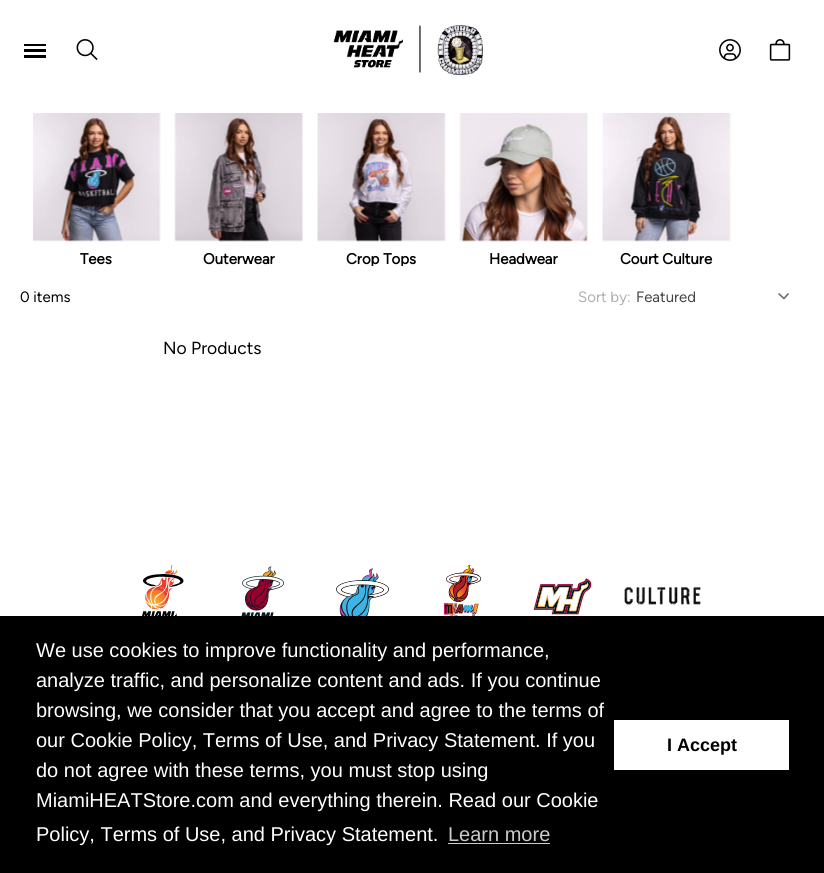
#include <cairo/cairo.h>
#include <math.h>
#include <stddef.h>


static void draw_image(cairo_t *cr, const char *path, double x, double y, double w, double h) {
  cairo_surface_t *image = cairo_image_surface_create_from_png(path);
  cairo_save(cr);
  cairo_set_source_surface(cr, image, x, y);
  cairo_rectangle(cr, x, y, w, h);
  cairo_fill(cr);
  cairo_restore(cr);
  cairo_surface_destroy(image);
}

static void draw(cairo_t *cr) {
  cairo_set_source_rgb(cr, 1, 1, 1);
  cairo_paint(cr);
  draw_image(cr, "images/1.png", 24, 44, 22, 14);
  draw_image(cr, "images/2.png", 76, 39, 22, 22);
  draw_image(cr, "images/3.png", 333, 25, 150, 51);
  draw_image(cr, "images/4.png", 719, 39, 22, 22);
  draw_image(cr, "images/5.png", 769, 39, 22, 22);
  draw_image(cr, "images/6.png", 33, 113, 128, 129);
  draw_image(cr, "images/7.png", 174, 113, 129, 129);
  draw_image(cr, "images/8.png", 317, 113, 129, 129);
  draw_image(cr, "images/9.png", 459, 113, 129, 129);
  draw_image(cr, "images/10.png", 602, 113, 129, 129);
  cairo_new_path(cr);
  cairo_move_to(cr, 779, 294);
  cairo_line_to(cr, 784, 298.5);
  cairo_line_to(cr, 788, 294);
  cairo_set_source_rgb(cr, 107 / 255.0, 114 / 255.0, 128 / 255.0);
  cairo_set_line_width(cr, 1.7);
  cairo_set_line_cap(cr, CAIRO_LINE_CAP_ROUND);
  cairo_set_line_join(cr, CAIRO_LINE_JOIN_ROUND);
  cairo_stroke(cr);
  draw_image(cr, "images/11.png", 141, 565, 43, 51);
  draw_image(cr, "images/12.png", 241, 566, 43, 50);
  draw_image(cr, "images/13.png", 336, 568, 53, 48);
  draw_image(cr, "images/14.png", 443, 565, 38, 51);
  draw_image(cr, "images/15.png", 533, 578, 59, 37);
  draw_image(cr, "images/16.png", 624, 587, 77, 18);
  cairo_set_source_rgb(cr, 0, 0, 0);
  cairo_rectangle(cr, 0, 616, 824, 257);
  cairo_fill(cr);
  cairo_set_source_rgb(cr, 204 / 255.0, 204 / 255.0, 204 / 255.0);
  cairo_rectangle(cr, 448, 843, 102, 1);
  cairo_fill(cr);
  cairo_set_source_rgb(cr, 1, 1, 1);
  cairo_rectangle(cr, 614, 720, 175, 50);
  cairo_fill(cr);
  cairo_select_font_face(cr, "Figtree", CAIRO_FONT_SLANT_NORMAL, CAIRO_FONT_WEIGHT_BOLD);
  cairo_set_font_size(cr, 15);
  cairo_set_source_rgb(cr, 0, 0, 0);
  cairo_move_to(cr, 80, 264);
  cairo_show_text(cr, "Tees");
  cairo_move_to(cr, 203, 264);
  cairo_show_text(cr, "Outerwear");
  cairo_save(cr);
  cairo_rectangle(cr, 13, 114, 800, 152);
  cairo_clip(cr);
  cairo_move_to(cr, 346, 264);
  cairo_show_text(cr, "Crop Tops");
  cairo_restore(cr);
  cairo_move_to(cr, 489, 264);
  cairo_show_text(cr, "Headwear");
  cairo_move_to(cr, 620, 264);
  cairo_show_text(cr, "Court Culture");
  cairo_select_font_face(cr, "Figtree", CAIRO_FONT_SLANT_NORMAL, CAIRO_FONT_WEIGHT_NORMAL);
  cairo_move_to(cr, 20, 302);
  cairo_show_text(cr, "0 items");
  cairo_set_source_rgb(cr, 176 / 255.0, 176 / 255.0, 176 / 255.0);
  cairo_move_to(cr, 578, 302);
  cairo_show_text(cr, "Sort by:");
  cairo_set_source_rgb(cr, 69 / 255.0, 69 / 255.0, 69 / 255.0);
  cairo_move_to(cr, 636, 302);
  cairo_show_text(cr, "Featured");
  cairo_set_font_size(cr, 17.5);
  cairo_set_source_rgb(cr, 0, 0, 0);
  cairo_move_to(cr, 163, 354);
  cairo_show_text(cr, "No Products");
  cairo_select_font_face(cr, "Liberation Sans", CAIRO_FONT_SLANT_NORMAL, CAIRO_FONT_WEIGHT_NORMAL);
  cairo_set_font_size(cr, 20);
  cairo_set_source_rgb(cr, 1, 1, 1);
  cairo_move_to(cr, 36, 657);
  cairo_show_text(cr, "We use cookies to improve functionality and performance,");
  cairo_move_to(cr, 36, 687);
  cairo_show_text(cr, "analyze traffic, and personalize content and ads. If you continue");
  cairo_move_to(cr, 36, 717);
  cairo_show_text(cr, "browsing, we consider that you accept and agree to the terms of");
  cairo_move_to(cr, 36, 747);
  cairo_show_text(cr, "our Cookie Policy, Terms of Use, and Privacy Statement. If you");
  cairo_move_to(cr, 36, 777);
  cairo_show_text(cr, "do not agree with these terms, you must stop using");
  cairo_move_to(cr, 36, 807);
  cairo_show_text(cr, "MiamiHEATStore.com and everything therein. Read our Cookie");
  cairo_move_to(cr, 36, 841);
  cairo_show_text(cr, "Policy, Terms of Use, and Privacy Statement.");
  cairo_set_source_rgb(cr, 204 / 255.0, 204 / 255.0, 204 / 255.0);
  cairo_move_to(cr, 448, 841);
  cairo_show_text(cr, "Learn more");
  cairo_select_font_face(cr, "Liberation Sans", CAIRO_FONT_SLANT_NORMAL, CAIRO_FONT_WEIGHT_BOLD);
  cairo_set_font_size(cr, 18);
  cairo_set_source_rgb(cr, 0, 0, 0);
  cairo_move_to(cr, 667, 751);
  cairo_show_text(cr, "I Accept");
}

int main(void) {
  cairo_surface_t *surface = cairo_image_surface_create(CAIRO_FORMAT_RGB24, 824, 873);
  cairo_t *cr = cairo_create(surface);
  cairo_font_options_t *options = cairo_font_options_create();
  cairo_font_options_set_hint_metrics(options, CAIRO_HINT_METRICS_OFF);
  cairo_font_options_set_hint_style(options, CAIRO_HINT_STYLE_NONE);
  cairo_set_font_options(cr, options);
  cairo_set_miter_limit(cr, 4);
  draw(cr);
  cairo_surface_write_to_png(surface, "out.png");
  cairo_font_options_destroy(options);
  cairo_destroy(cr);
  cairo_surface_destroy(surface);
  return 0;
}
